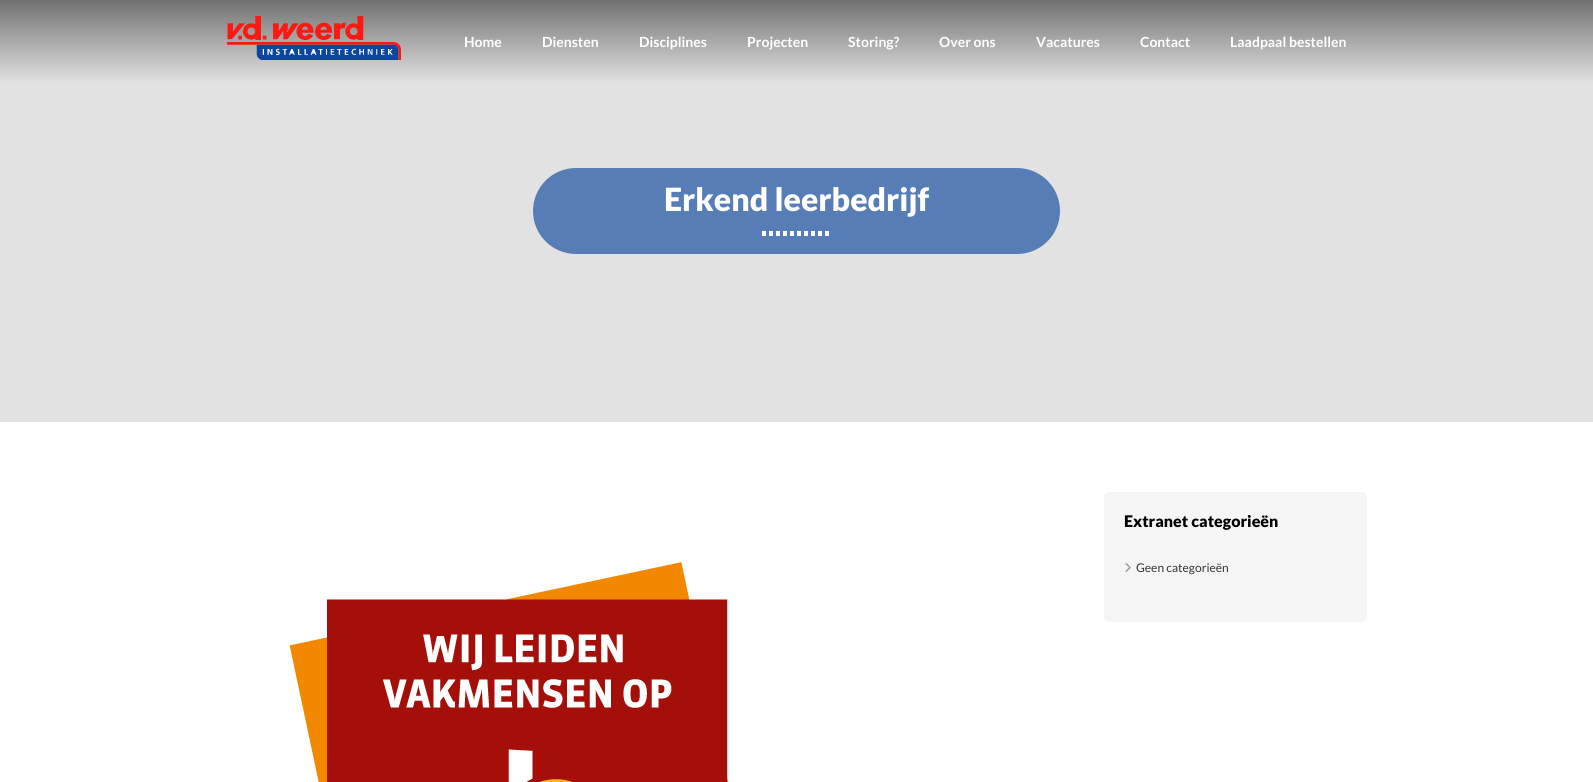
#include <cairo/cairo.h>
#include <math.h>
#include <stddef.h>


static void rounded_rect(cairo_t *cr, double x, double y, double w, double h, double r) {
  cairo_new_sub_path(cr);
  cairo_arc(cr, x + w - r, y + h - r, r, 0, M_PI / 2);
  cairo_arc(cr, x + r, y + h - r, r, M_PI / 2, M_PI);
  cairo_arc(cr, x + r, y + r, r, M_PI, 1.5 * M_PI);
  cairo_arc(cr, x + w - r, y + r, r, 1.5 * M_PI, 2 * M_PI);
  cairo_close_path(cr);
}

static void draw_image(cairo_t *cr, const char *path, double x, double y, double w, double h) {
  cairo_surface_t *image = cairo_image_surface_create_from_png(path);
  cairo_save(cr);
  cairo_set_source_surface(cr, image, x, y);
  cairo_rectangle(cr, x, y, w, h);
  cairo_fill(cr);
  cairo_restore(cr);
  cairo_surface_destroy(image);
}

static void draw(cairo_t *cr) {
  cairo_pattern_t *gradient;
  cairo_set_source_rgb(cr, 1, 1, 1);
  cairo_paint(cr);
  gradient = cairo_pattern_create_linear(797, 0, 797, 83);
  cairo_pattern_add_color_stop_rgba(gradient, 0, 113 / 255.0, 113 / 255.0, 113 / 255.0, 1);
  cairo_pattern_add_color_stop_rgba(gradient, 1, 226 / 255.0, 226 / 255.0, 226 / 255.0, 1);
  cairo_set_source(cr, gradient);
  cairo_pattern_destroy(gradient);
  cairo_rectangle(cr, 0, 0, 1593, 83);
  cairo_fill(cr);
  draw_image(cr, "images/1.png", 227, 16, 174, 44);
  cairo_set_source_rgb(cr, 226 / 255.0, 226 / 255.0, 226 / 255.0);
  cairo_rectangle(cr, 0, 83, 1593, 339);
  cairo_fill(cr);
  cairo_set_source_rgb(cr, 86 / 255.0, 125 / 255.0, 181 / 255.0);
  rounded_rect(cr, 533, 168, 527, 86, 43);
  cairo_fill(cr);
  cairo_set_source_rgb(cr, 1, 1, 1);
  cairo_rectangle(cr, 762, 231, 4, 5);
  cairo_fill(cr);
  cairo_rectangle(cr, 769, 231, 4, 5);
  cairo_fill(cr);
  cairo_rectangle(cr, 776, 231, 4, 5);
  cairo_fill(cr);
  cairo_rectangle(cr, 783, 231, 4, 5);
  cairo_fill(cr);
  cairo_rectangle(cr, 790, 231, 4, 5);
  cairo_fill(cr);
  cairo_rectangle(cr, 797, 231, 4, 5);
  cairo_fill(cr);
  cairo_rectangle(cr, 804, 231, 4, 5);
  cairo_fill(cr);
  cairo_rectangle(cr, 811, 231, 4, 5);
  cairo_fill(cr);
  cairo_rectangle(cr, 818, 231, 4, 5);
  cairo_fill(cr);
  cairo_rectangle(cr, 825, 231, 4, 5);
  cairo_fill(cr);
  cairo_set_source_rgb(cr, 245 / 255.0, 245 / 255.0, 245 / 255.0);
  rounded_rect(cr, 1104, 492, 263, 130, 5);
  cairo_fill(cr);
  draw_image(cr, "images/2.png", 1125, 563, 6, 9);
  draw_image(cr, "images/3.png", 289, 562, 439, 220);
  cairo_select_font_face(cr, "Lato", CAIRO_FONT_SLANT_NORMAL, CAIRO_FONT_WEIGHT_BOLD);
  cairo_set_font_size(cr, 14);
  cairo_set_source_rgb(cr, 1, 1, 1);
  cairo_move_to(cr, 464, 47);
  cairo_show_text(cr, "Home");
  cairo_move_to(cr, 542, 47);
  cairo_show_text(cr, "Diensten");
  cairo_move_to(cr, 639, 47);
  cairo_show_text(cr, "Disciplines");
  cairo_move_to(cr, 747, 47);
  cairo_show_text(cr, "Projecten");
  cairo_move_to(cr, 848, 47);
  cairo_show_text(cr, "Storing?");
  cairo_move_to(cr, 939, 47);
  cairo_show_text(cr, "Over ons");
  cairo_move_to(cr, 1036, 47);
  cairo_show_text(cr, "Vacatures");
  cairo_move_to(cr, 1140, 47);
  cairo_show_text(cr, "Contact");
  cairo_move_to(cr, 1230, 47);
  cairo_show_text(cr, "Laadpaal bestellen");
  cairo_select_font_face(cr, "Lato Black", CAIRO_FONT_SLANT_NORMAL, CAIRO_FONT_WEIGHT_NORMAL);
  cairo_set_font_size(cr, 32);
  cairo_move_to(cr, 664, 211);
  cairo_show_text(cr, "Erkend leerbedrijf");
  cairo_set_font_size(cr, 16);
  cairo_set_source_rgb(cr, 0, 0, 0);
  cairo_move_to(cr, 1124, 527);
  cairo_show_text(cr, "Extranet categorieën");
  cairo_select_font_face(cr, "Lato", CAIRO_FONT_SLANT_NORMAL, CAIRO_FONT_WEIGHT_NORMAL);
  cairo_set_font_size(cr, 12);
  cairo_set_source_rgb(cr, 51 / 255.0, 51 / 255.0, 51 / 255.0);
  cairo_move_to(cr, 1136, 572);
  cairo_show_text(cr, "Geen categorieën");
}

int main(void) {
  cairo_surface_t *surface = cairo_image_surface_create(CAIRO_FORMAT_RGB24, 1593, 782);
  cairo_t *cr = cairo_create(surface);
  cairo_font_options_t *options = cairo_font_options_create();
  cairo_font_options_set_hint_metrics(options, CAIRO_HINT_METRICS_OFF);
  cairo_font_options_set_hint_style(options, CAIRO_HINT_STYLE_NONE);
  cairo_set_font_options(cr, options);
  cairo_set_miter_limit(cr, 4);
  draw(cr);
  cairo_surface_write_to_png(surface, "out.png");
  cairo_font_options_destroy(options);
  cairo_destroy(cr);
  cairo_surface_destroy(surface);
  return 0;
}
